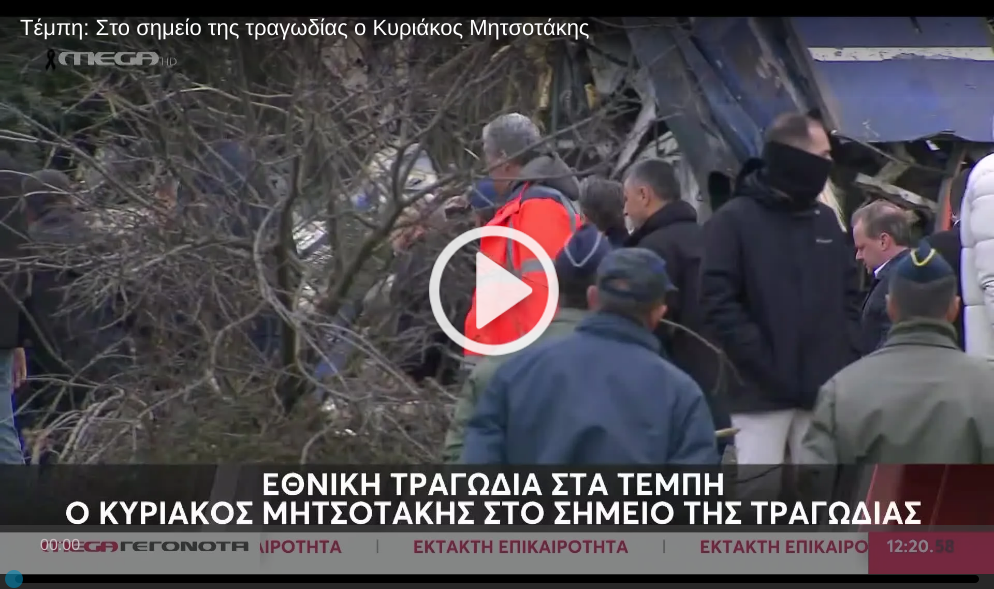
#include <cairo/cairo.h>
#include <math.h>
#include <stddef.h>


static void rounded_rect(cairo_t *cr, double x, double y, double w, double h, double r) {
  cairo_new_sub_path(cr);
  cairo_arc(cr, x + w - r, y + h - r, r, 0, M_PI / 2);
  cairo_arc(cr, x + r, y + h - r, r, M_PI / 2, M_PI);
  cairo_arc(cr, x + r, y + r, r, M_PI, 1.5 * M_PI);
  cairo_arc(cr, x + w - r, y + r, r, 1.5 * M_PI, 2 * M_PI);
  cairo_close_path(cr);
}

static void draw_image(cairo_t *cr, const char *path, double x, double y, double w, double h) {
  cairo_surface_t *image = cairo_image_surface_create_from_png(path);
  cairo_save(cr);
  cairo_set_source_surface(cr, image, x, y);
  cairo_rectangle(cr, x, y, w, h);
  cairo_fill(cr);
  cairo_restore(cr);
  cairo_surface_destroy(image);
}

static void draw(cairo_t *cr) {
  cairo_pattern_t *gradient;
  cairo_set_source_rgb(cr, 0, 0, 0);
  cairo_paint(cr);
  draw_image(cr, "images/1.png", 0, 15, 994, 559);
  gradient = cairo_pattern_create_linear(497, 0, 497, 100);
  cairo_pattern_add_color_stop_rgba(gradient, 0, 0, 0, 0, 0.65);
  cairo_pattern_add_color_stop_rgba(gradient, 1, 0, 0, 0, 0);
  cairo_set_source(cr, gradient);
  cairo_pattern_destroy(gradient);
  cairo_rectangle(cr, 0, 15, 994, 82);
  cairo_fill(cr);
  draw_image(cr, "images/2.png", 429, 225, 134, 138);
  cairo_set_source_rgba(cr, 68 / 255.0, 68 / 255.0, 68 / 255.0, 0.6);
  cairo_rectangle(cr, 0, 525, 994, 64);
  cairo_fill(cr);
  cairo_set_source_rgb(cr, 0, 0, 0);
  rounded_rect(cr, 15, 575, 964, 8, 4);
  cairo_fill(cr);
  cairo_set_source_rgba(cr, 0, 133 / 255.0, 178 / 255.0, 0.6);
  cairo_arc(cr, 14, 579, 9, 0, 2 * M_PI);
  cairo_fill(cr);
  cairo_select_font_face(cr, "Liberation Sans", CAIRO_FONT_SLANT_NORMAL, CAIRO_FONT_WEIGHT_NORMAL);
  cairo_set_font_size(cr, 22);
  cairo_set_source_rgb(cr, 1, 1, 1);
  cairo_move_to(cr, 20, 35);
  cairo_show_text(cr, "Τέμπη: Στο σημείο της τραγωδίας ο Κυριάκος Μητσοτάκης");
  cairo_set_font_size(cr, 16);
  cairo_set_source_rgb(cr, 202 / 255.0, 189 / 255.0, 193 / 255.0);
  cairo_move_to(cr, 40, 550);
  cairo_show_text(cr, "00:00");
}

int main(void) {
  cairo_surface_t *surface = cairo_image_surface_create(CAIRO_FORMAT_RGB24, 994, 589);
  cairo_t *cr = cairo_create(surface);
  cairo_font_options_t *options = cairo_font_options_create();
  cairo_font_options_set_hint_metrics(options, CAIRO_HINT_METRICS_OFF);
  cairo_font_options_set_hint_style(options, CAIRO_HINT_STYLE_NONE);
  cairo_set_font_options(cr, options);
  cairo_set_miter_limit(cr, 4);
  draw(cr);
  cairo_surface_write_to_png(surface, "out.png");
  cairo_font_options_destroy(options);
  cairo_destroy(cr);
  cairo_surface_destroy(surface);
  return 0;
}
